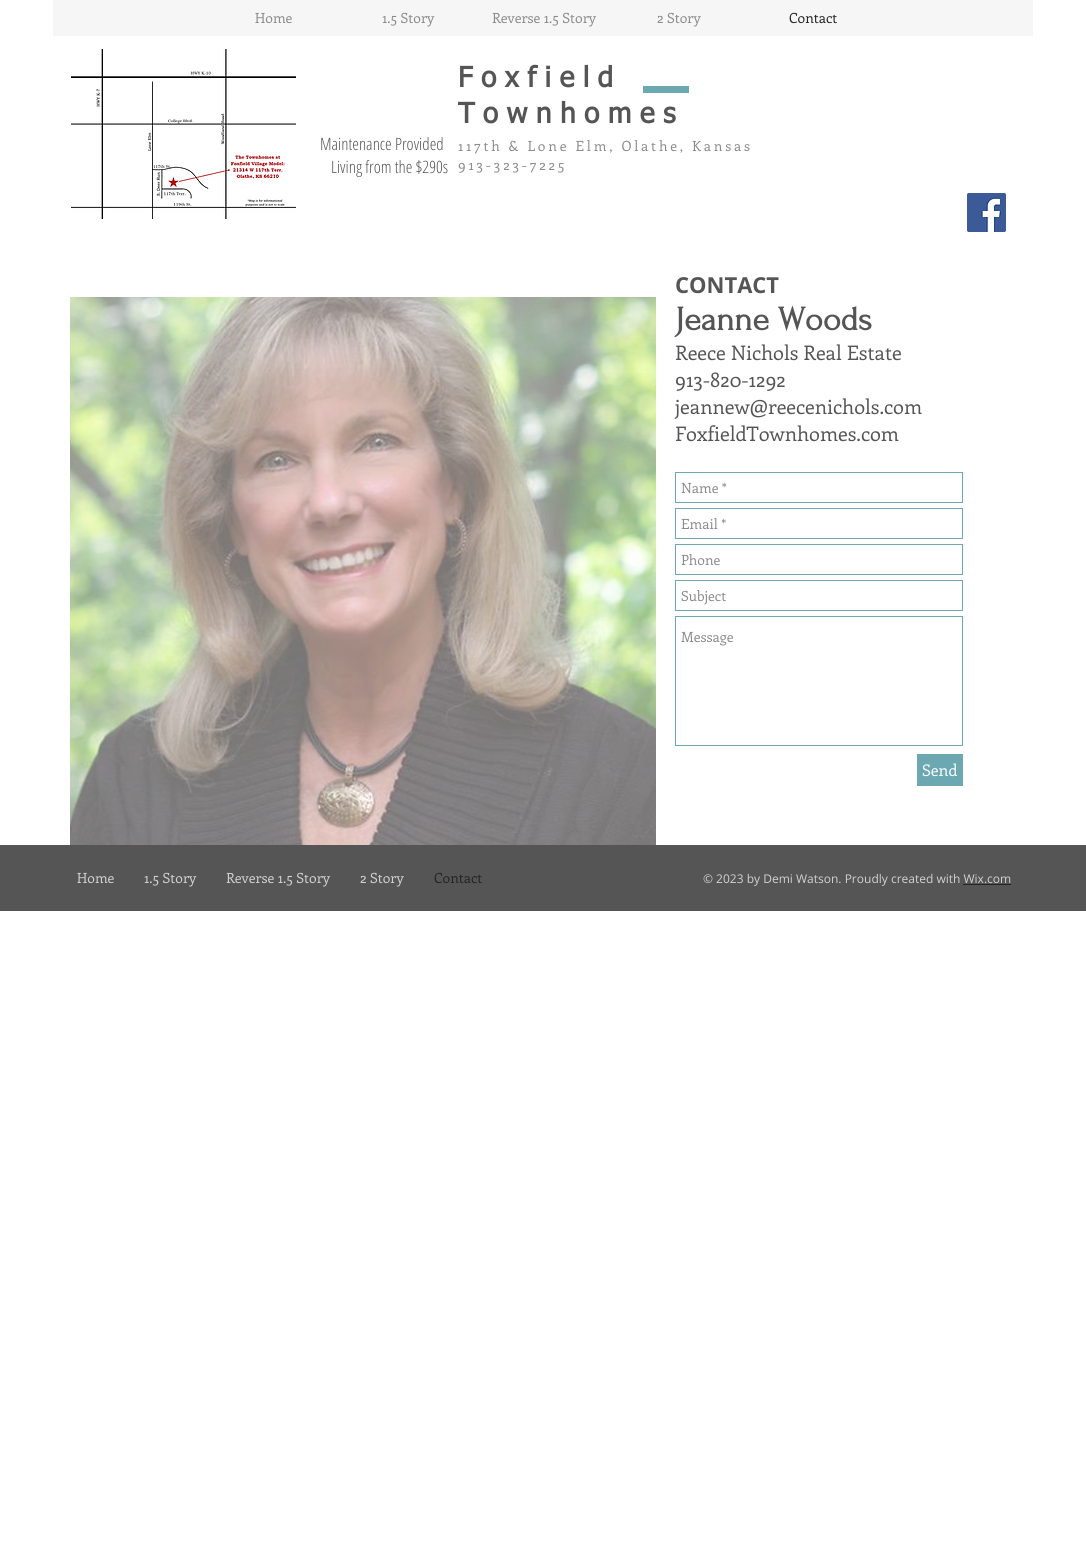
#include <cairo/cairo.h>
#include <math.h>
#include <stddef.h>


static void draw_spaced(cairo_t *cr, double x, double y, const char *s, double letter, double word) {
  cairo_move_to(cr, x, y);
  while (*s) {
    char ch[5] = {0};
    int n = 0;
    do ch[n++] = *s++; while ((*s & 0xC0) == 0x80);
    cairo_show_text(cr, ch);
    cairo_rel_move_to(cr, letter + word * (*ch == ' '), 0);
  }
}

static void draw_image(cairo_t *cr, const char *path, double x, double y, double w, double h) {
  cairo_surface_t *image = cairo_image_surface_create_from_png(path);
  cairo_save(cr);
  cairo_set_source_surface(cr, image, x, y);
  cairo_rectangle(cr, x, y, w, h);
  cairo_fill(cr);
  cairo_restore(cr);
  cairo_surface_destroy(image);
}

static void draw(cairo_t *cr) {
  cairo_set_source_rgb(cr, 1, 1, 1);
  cairo_paint(cr);
  cairo_set_source_rgb(cr, 246 / 255.0, 246 / 255.0, 246 / 255.0);
  cairo_rectangle(cr, 53, 0, 980, 36);
  cairo_fill(cr);
  draw_image(cr, "images/1.png", 71, 49, 225, 170);
  cairo_set_source_rgb(cr, 107 / 255.0, 168 / 255.0, 178 / 255.0);
  cairo_rectangle(cr, 643, 86, 46, 7);
  cairo_fill(cr);
  draw_image(cr, "images/2.png", 967, 193, 39, 39);
  draw_image(cr, "images/3.png", 70, 297, 586, 548);
  cairo_rectangle(cr, 675.5, 472.5, 287, 30);
  cairo_set_line_width(cr, 1);
  cairo_stroke(cr);
  cairo_rectangle(cr, 675.5, 508.5, 287, 30);
  cairo_stroke(cr);
  cairo_rectangle(cr, 675.5, 544.5, 287, 30);
  cairo_stroke(cr);
  cairo_rectangle(cr, 675.5, 580.5, 287, 30);
  cairo_stroke(cr);
  cairo_rectangle(cr, 675.5, 616.5, 287, 129);
  cairo_stroke(cr);
  cairo_rectangle(cr, 917, 754, 46, 32);
  cairo_fill(cr);
  cairo_set_source_rgb(cr, 85 / 255.0, 85 / 255.0, 85 / 255.0);
  cairo_rectangle(cr, 0, 845, 1086, 66);
  cairo_fill(cr);
  cairo_select_font_face(cr, "Enriqueta", CAIRO_FONT_SLANT_NORMAL, CAIRO_FONT_WEIGHT_NORMAL);
  cairo_set_font_size(cr, 14);
  cairo_set_source_rgb(cr, 139 / 255.0, 139 / 255.0, 139 / 255.0);
  cairo_move_to(cr, 255, 23);
  cairo_show_text(cr, "Home");
  cairo_move_to(cr, 382, 23);
  cairo_show_text(cr, "1.5 Story");
  cairo_move_to(cr, 492, 23);
  cairo_show_text(cr, "Reverse 1.5 Story");
  cairo_move_to(cr, 657, 23);
  cairo_show_text(cr, "2 Story");
  cairo_set_source_rgb(cr, 36 / 255.0, 36 / 255.0, 36 / 255.0);
  cairo_move_to(cr, 789, 23);
  cairo_show_text(cr, "Contact");
  cairo_select_font_face(cr, "tahoma", CAIRO_FONT_SLANT_NORMAL, CAIRO_FONT_WEIGHT_BOLD);
  cairo_set_font_size(cr, 28);
  cairo_set_source_rgb(cr, 85 / 255.0, 85 / 255.0, 85 / 255.0);
  draw_spaced(cr, 458, 87, "Foxfield", 8.5, 0);
  draw_spaced(cr, 458, 123, "Townhomes", 8.5, 0);
  cairo_select_font_face(cr, "Open Sans Condensed Light", CAIRO_FONT_SLANT_NORMAL, CAIRO_FONT_WEIGHT_NORMAL);
  cairo_set_font_size(cr, 17);
  cairo_move_to(cr, 320, 150);
  cairo_show_text(cr, "Maintenance Provided");
  cairo_move_to(cr, 331, 173);
  cairo_show_text(cr, "Living from the $290s");
  cairo_select_font_face(cr, "Enriqueta", CAIRO_FONT_SLANT_NORMAL, CAIRO_FONT_WEIGHT_NORMAL);
  cairo_set_font_size(cr, 14);
  cairo_set_source_rgb(cr, 139 / 255.0, 139 / 255.0, 139 / 255.0);
  draw_spaced(cr, 458, 151, "117th & Lone Elm, Olathe, Kansas", 2.8, 0);
  draw_spaced(cr, 458, 170, "913-323-7225", 2.8, 0);
  cairo_select_font_face(cr, "Open Sans", CAIRO_FONT_SLANT_NORMAL, CAIRO_FONT_WEIGHT_BOLD);
  cairo_set_font_size(cr, 22);
  cairo_set_source_rgb(cr, 85 / 255.0, 85 / 255.0, 85 / 255.0);
  cairo_move_to(cr, 675, 293);
  cairo_show_text(cr, "CONTACT");
  cairo_select_font_face(cr, "Forum", CAIRO_FONT_SLANT_NORMAL, CAIRO_FONT_WEIGHT_BOLD);
  cairo_set_font_size(cr, 34);
  cairo_move_to(cr, 675, 330);
  cairo_show_text(cr, "Jeanne Woods");
  cairo_select_font_face(cr, "Enriqueta", CAIRO_FONT_SLANT_NORMAL, CAIRO_FONT_WEIGHT_NORMAL);
  cairo_set_font_size(cr, 20);
  cairo_move_to(cr, 675, 360);
  cairo_show_text(cr, "Reece Nichols Real Estate");
  cairo_move_to(cr, 675, 387);
  cairo_show_text(cr, "913-820-1292");
  cairo_move_to(cr, 675, 414);
  cairo_show_text(cr, "jeannew@reecenichols.com");
  cairo_move_to(cr, 675, 441);
  cairo_show_text(cr, "FoxfieldTownhomes.com");
  cairo_set_font_size(cr, 14);
  cairo_set_source_rgb(cr, 139 / 255.0, 139 / 255.0, 139 / 255.0);
  cairo_move_to(cr, 681, 493);
  cairo_show_text(cr, "Name *");
  cairo_move_to(cr, 681, 529);
  cairo_show_text(cr, "Email *");
  cairo_move_to(cr, 681, 565);
  cairo_show_text(cr, "Phone");
  cairo_move_to(cr, 681, 601);
  cairo_show_text(cr, "Subject");
  cairo_move_to(cr, 681, 642);
  cairo_show_text(cr, "Message");
  cairo_set_font_size(cr, 16);
  cairo_set_source_rgb(cr, 1, 1, 1);
  cairo_move_to(cr, 922, 776);
  cairo_show_text(cr, "Send");
  cairo_set_font_size(cr, 14);
  cairo_set_source_rgb(cr, 209 / 255.0, 209 / 255.0, 209 / 255.0);
  cairo_move_to(cr, 77, 883);
  cairo_show_text(cr, "Home");
  cairo_move_to(cr, 144, 883);
  cairo_show_text(cr, "1.5 Story");
  cairo_move_to(cr, 226, 883);
  cairo_show_text(cr, "Reverse 1.5 Story");
  cairo_move_to(cr, 360, 883);
  cairo_show_text(cr, "2 Story");
  cairo_set_source_rgb(cr, 36 / 255.0, 36 / 255.0, 36 / 255.0);
  cairo_move_to(cr, 434, 883);
  cairo_show_text(cr, "Contact");
  cairo_select_font_face(cr, "Open Sans", CAIRO_FONT_SLANT_NORMAL, CAIRO_FONT_WEIGHT_NORMAL);
  cairo_set_font_size(cr, 12);
  cairo_set_source_rgb(cr, 209 / 255.0, 209 / 255.0, 209 / 255.0);
  cairo_move_to(cr, 703, 883);
  cairo_show_text(cr, "© 2023 by Demi Watson. Proudly created with Wix.com");
  cairo_set_source_rgb(cr, 36 / 255.0, 36 / 255.0, 36 / 255.0);
  cairo_rectangle(cr, 963, 884, 48, 1);
  cairo_fill(cr);
}

int main(void) {
  cairo_surface_t *surface = cairo_image_surface_create(CAIRO_FORMAT_RGB24, 1086, 1554);
  cairo_t *cr = cairo_create(surface);
  cairo_font_options_t *options = cairo_font_options_create();
  cairo_font_options_set_hint_metrics(options, CAIRO_HINT_METRICS_OFF);
  cairo_font_options_set_hint_style(options, CAIRO_HINT_STYLE_NONE);
  cairo_set_font_options(cr, options);
  cairo_set_miter_limit(cr, 4);
  draw(cr);
  cairo_surface_write_to_png(surface, "out.png");
  cairo_font_options_destroy(options);
  cairo_destroy(cr);
  cairo_surface_destroy(surface);
  return 0;
}
